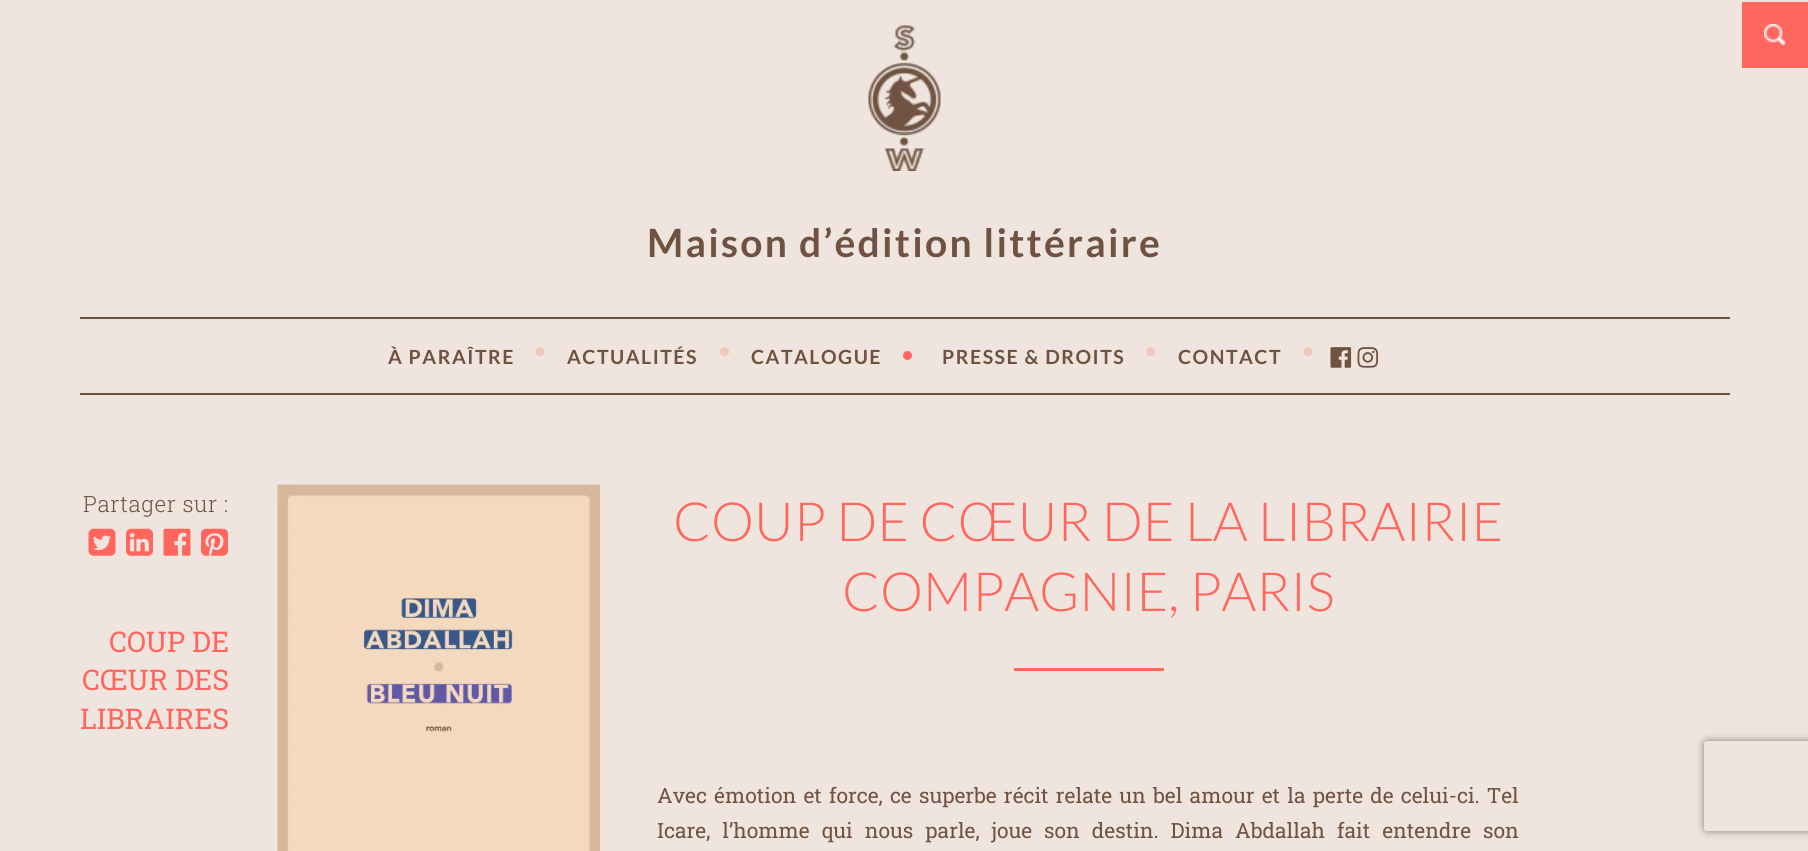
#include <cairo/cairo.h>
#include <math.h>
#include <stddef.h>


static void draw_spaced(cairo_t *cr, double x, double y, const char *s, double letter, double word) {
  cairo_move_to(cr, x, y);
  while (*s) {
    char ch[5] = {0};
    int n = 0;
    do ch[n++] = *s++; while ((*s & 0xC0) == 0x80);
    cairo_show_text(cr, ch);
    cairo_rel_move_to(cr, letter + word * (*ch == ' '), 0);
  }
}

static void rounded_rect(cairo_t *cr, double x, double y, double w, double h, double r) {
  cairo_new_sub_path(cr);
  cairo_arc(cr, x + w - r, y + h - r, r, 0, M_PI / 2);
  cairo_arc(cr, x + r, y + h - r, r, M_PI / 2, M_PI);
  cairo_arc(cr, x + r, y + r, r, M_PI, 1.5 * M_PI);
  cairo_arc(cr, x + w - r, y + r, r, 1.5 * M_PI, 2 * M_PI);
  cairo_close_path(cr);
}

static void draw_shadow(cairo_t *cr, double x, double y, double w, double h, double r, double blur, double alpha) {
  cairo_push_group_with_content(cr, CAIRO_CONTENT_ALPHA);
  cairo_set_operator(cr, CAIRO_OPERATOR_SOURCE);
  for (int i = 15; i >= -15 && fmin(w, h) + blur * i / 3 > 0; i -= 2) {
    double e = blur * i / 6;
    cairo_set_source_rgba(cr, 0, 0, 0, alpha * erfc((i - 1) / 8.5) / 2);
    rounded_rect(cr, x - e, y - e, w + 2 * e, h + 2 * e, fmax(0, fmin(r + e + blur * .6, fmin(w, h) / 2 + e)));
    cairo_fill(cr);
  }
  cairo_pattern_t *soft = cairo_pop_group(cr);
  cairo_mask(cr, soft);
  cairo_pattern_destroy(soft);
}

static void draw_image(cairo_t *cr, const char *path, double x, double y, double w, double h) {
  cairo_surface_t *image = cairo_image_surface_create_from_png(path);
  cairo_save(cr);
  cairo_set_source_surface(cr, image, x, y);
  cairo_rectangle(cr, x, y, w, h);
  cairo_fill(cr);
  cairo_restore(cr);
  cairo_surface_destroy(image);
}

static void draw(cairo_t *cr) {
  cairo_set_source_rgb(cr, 239 / 255.0, 229 / 255.0, 222 / 255.0);
  cairo_paint(cr);
  cairo_set_source_rgb(cr, 1, 102 / 255.0, 94 / 255.0);
  cairo_rectangle(cr, 1742, 2, 66, 66);
  cairo_fill(cr);
  draw_image(cr, "images/1.png", 1764, 24, 22, 22);
  draw_image(cr, "images/2.png", 868, 25, 73, 146);
  cairo_set_source_rgb(cr, 111 / 255.0, 82 / 255.0, 65 / 255.0);
  cairo_rectangle(cr, 80, 317, 1650, 2);
  cairo_fill(cr);
  cairo_rectangle(cr, 80, 393, 1650, 2);
  cairo_fill(cr);
  draw_image(cr, "images/3.png", 535, 347, 10, 10);
  draw_image(cr, "images/4.png", 720, 347, 9, 10);
  draw_image(cr, "images/5.png", 903, 351, 9, 9);
  draw_image(cr, "images/4.png", 1146, 347, 9, 10);
  draw_image(cr, "images/3.png", 1303, 347, 10, 10);
  draw_image(cr, "images/6.png", 1330, 347, 22, 21);
  draw_image(cr, "images/7.png", 1357, 347, 22, 21);
  draw_image(cr, "images/8.png", 88, 528, 28, 28);
  draw_image(cr, "images/9.png", 126, 528, 27, 28);
  draw_image(cr, "images/10.png", 163, 528, 28, 28);
  draw_image(cr, "images/11.png", 201, 528, 27, 28);
  draw_image(cr, "images/12.png", 277, 484, 323, 367);
  cairo_set_source_rgb(cr, 1, 102 / 255.0, 94 / 255.0);
  cairo_rectangle(cr, 1014, 668, 150, 3);
  cairo_fill(cr);
  cairo_save(cr);
  cairo_set_fill_rule(cr, CAIRO_FILL_RULE_EVEN_ODD);
  cairo_new_path(cr);
  cairo_move_to(cr, 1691, 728);
  cairo_line_to(cr, 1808, 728);
  cairo_line_to(cr, 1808, 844);
  cairo_line_to(cr, 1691, 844);
  cairo_close_path(cr);
  cairo_move_to(cr, 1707, 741);
  cairo_line_to(cr, 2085, 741);
  cairo_curve_to(cr, 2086.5, 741, 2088, 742.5, 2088, 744);
  cairo_line_to(cr, 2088, 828);
  cairo_curve_to(cr, 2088, 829.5, 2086.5, 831, 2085, 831);
  cairo_line_to(cr, 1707, 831);
  cairo_curve_to(cr, 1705.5, 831, 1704, 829.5, 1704, 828);
  cairo_line_to(cr, 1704, 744);
  cairo_curve_to(cr, 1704, 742.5, 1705.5, 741, 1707, 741);
  cairo_close_path(cr);
  cairo_clip(cr);
  cairo_set_source_rgb(cr, 128 / 255.0, 128 / 255.0, 128 / 255.0);
  draw_shadow(cr, 1704, 741, 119, 90, 3, 4, 1);
  cairo_restore(cr);
  cairo_select_font_face(cr, "Lato", CAIRO_FONT_SLANT_NORMAL, CAIRO_FONT_WEIGHT_BOLD);
  cairo_set_font_size(cr, 39);
  cairo_set_source_rgb(cr, 111 / 255.0, 82 / 255.0, 65 / 255.0);
  draw_spaced(cr, 647, 257, "Maison d’édition littéraire", 2.25, 0);
  cairo_set_font_size(cr, 19.5);
  draw_spaced(cr, 388, 364, "À PARAÎTRE", 1.5, 0);
  draw_spaced(cr, 567, 364, "ACTUALITÉS", 1.5, 0);
  draw_spaced(cr, 751, 364, "CATALOGUE", 1.5, 0);
  draw_spaced(cr, 942, 364, "PRESSE & DROITS", 1.5, 0);
  draw_spaced(cr, 1178, 364, "CONTACT", 1.5, 0);
  cairo_select_font_face(cr, "Roboto Slab Light", CAIRO_FONT_SLANT_NORMAL, CAIRO_FONT_WEIGHT_NORMAL);
  cairo_set_font_size(cr, 22.5);
  draw_spaced(cr, 83, 512, "Partager sur :", 0.5, 0);
  cairo_select_font_face(cr, "Lato Light", CAIRO_FONT_SLANT_NORMAL, CAIRO_FONT_WEIGHT_NORMAL);
  cairo_set_font_size(cr, 54);
  cairo_set_source_rgb(cr, 1, 102 / 255.0, 94 / 255.0);
  cairo_move_to(cr, 673, 541);
  cairo_show_text(cr, "COUP DE CŒUR DE LA LIBRAIRIE");
  cairo_move_to(cr, 842, 611);
  cairo_show_text(cr, "COMPAGNIE, PARIS");
  cairo_select_font_face(cr, "Roboto Slab", CAIRO_FONT_SLANT_NORMAL, CAIRO_FONT_WEIGHT_NORMAL);
  cairo_set_font_size(cr, 21);
  cairo_set_source_rgb(cr, 111 / 255.0, 82 / 255.0, 65 / 255.0);
  draw_spaced(cr, 657, 803, "Avec émotion et force, ce superbe récit relate un bel amour et la perte de celui-ci. Tel", 0, 2);
  draw_spaced(cr, 657, 838, "Icare, l’homme qui nous parle, joue son destin. Dima Abdallah fait entendre son", 0, 6.75);
  cairo_set_font_size(cr, 28.5);
  cairo_set_source_rgb(cr, 1, 102 / 255.0, 94 / 255.0);
  cairo_move_to(cr, 109, 652);
  cairo_show_text(cr, "COUP DE");
  cairo_move_to(cr, 82, 690);
  cairo_show_text(cr, "CŒUR DES");
  cairo_move_to(cr, 80, 729);
  cairo_show_text(cr, "LIBRAIRES");
}

int main(void) {
  cairo_surface_t *surface = cairo_image_surface_create(CAIRO_FORMAT_RGB24, 1808, 851);
  cairo_t *cr = cairo_create(surface);
  cairo_font_options_t *options = cairo_font_options_create();
  cairo_font_options_set_hint_metrics(options, CAIRO_HINT_METRICS_OFF);
  cairo_font_options_set_hint_style(options, CAIRO_HINT_STYLE_NONE);
  cairo_set_font_options(cr, options);
  cairo_set_miter_limit(cr, 4);
  draw(cr);
  cairo_surface_write_to_png(surface, "out.png");
  cairo_font_options_destroy(options);
  cairo_destroy(cr);
  cairo_surface_destroy(surface);
  return 0;
}
